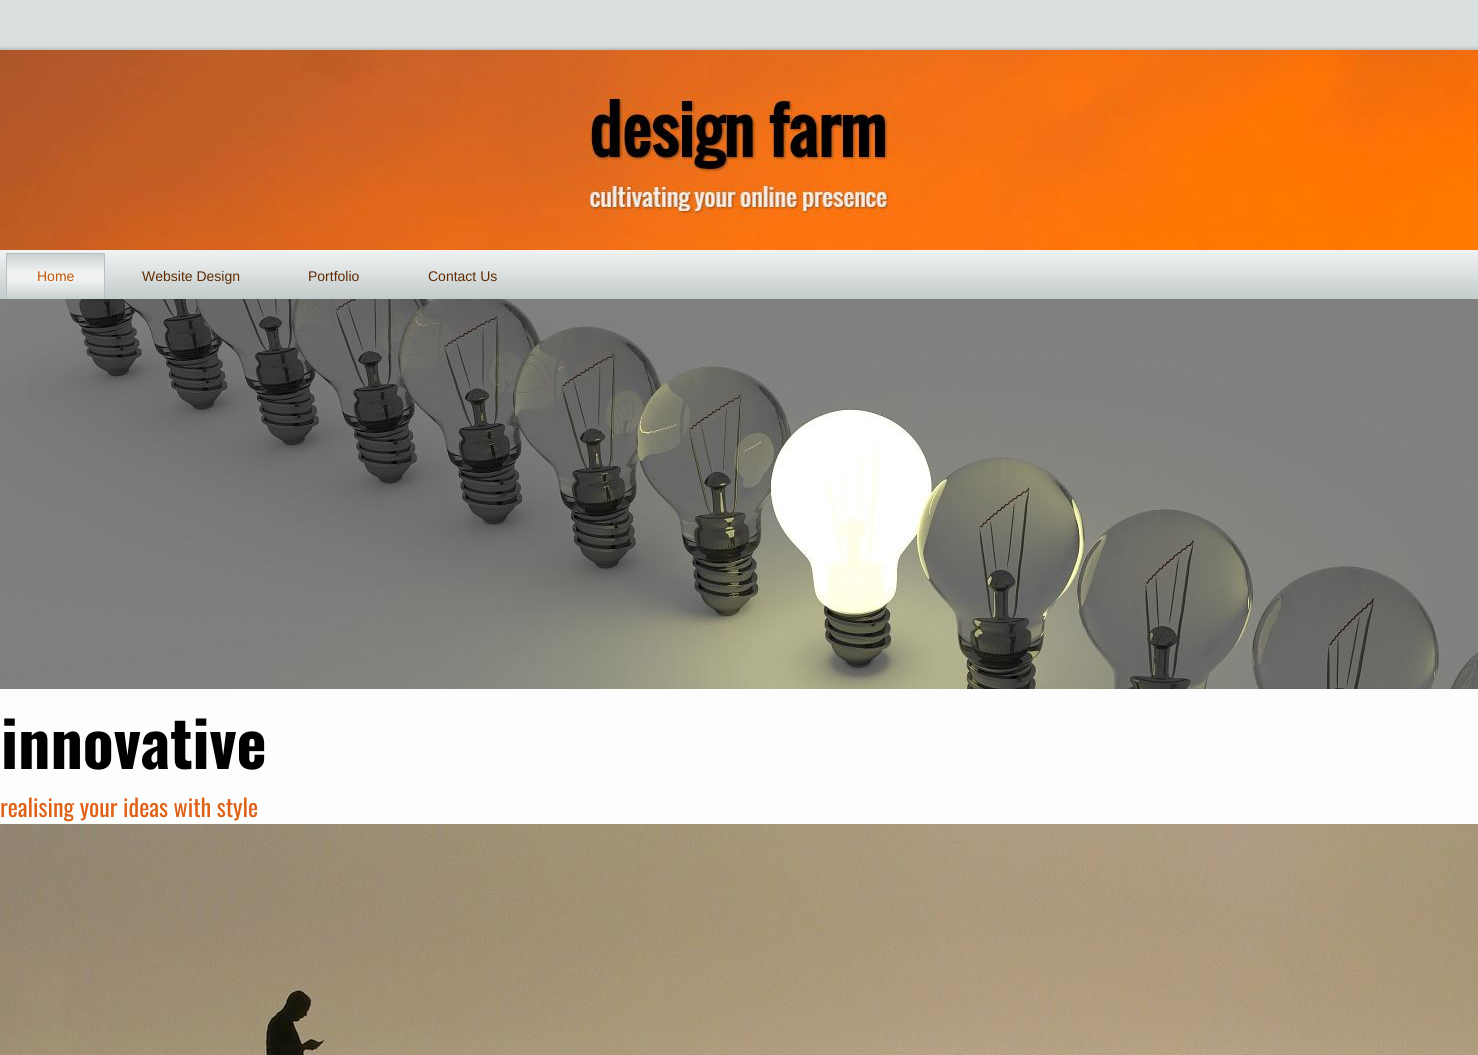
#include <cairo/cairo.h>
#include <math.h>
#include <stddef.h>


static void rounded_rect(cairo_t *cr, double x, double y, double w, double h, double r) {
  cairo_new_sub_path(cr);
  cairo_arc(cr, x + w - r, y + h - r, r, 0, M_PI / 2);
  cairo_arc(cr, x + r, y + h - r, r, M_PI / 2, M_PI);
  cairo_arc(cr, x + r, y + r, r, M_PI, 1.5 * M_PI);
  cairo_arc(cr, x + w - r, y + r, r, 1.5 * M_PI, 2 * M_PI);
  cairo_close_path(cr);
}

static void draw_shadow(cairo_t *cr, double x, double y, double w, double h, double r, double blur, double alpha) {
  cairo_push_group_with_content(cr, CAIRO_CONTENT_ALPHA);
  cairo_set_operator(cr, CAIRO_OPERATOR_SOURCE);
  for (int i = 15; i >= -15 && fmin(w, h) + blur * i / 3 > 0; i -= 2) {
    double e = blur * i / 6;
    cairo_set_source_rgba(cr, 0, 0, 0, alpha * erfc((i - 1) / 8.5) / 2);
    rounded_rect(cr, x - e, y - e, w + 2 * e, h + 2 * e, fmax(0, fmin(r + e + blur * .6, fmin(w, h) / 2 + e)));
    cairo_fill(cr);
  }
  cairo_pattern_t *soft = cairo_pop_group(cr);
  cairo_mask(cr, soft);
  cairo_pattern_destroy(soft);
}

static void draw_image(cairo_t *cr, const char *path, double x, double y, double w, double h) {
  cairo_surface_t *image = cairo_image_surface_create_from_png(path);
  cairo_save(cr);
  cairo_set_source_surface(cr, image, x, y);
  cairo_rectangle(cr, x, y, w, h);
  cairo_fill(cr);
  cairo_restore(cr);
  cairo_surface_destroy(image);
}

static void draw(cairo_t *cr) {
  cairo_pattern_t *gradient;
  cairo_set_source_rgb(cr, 217 / 255.0, 222 / 255.0, 222 / 255.0);
  cairo_paint(cr);
  cairo_set_source_rgb(cr, 0, 0, 0);
  draw_shadow(cr, -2, 48, 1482, 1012, 0, 1.5, 0.15);
  cairo_set_source_rgb(cr, 252 / 255.0, 253 / 255.0, 253 / 255.0);
  cairo_rectangle(cr, 0, 689, 1478, 135);
  cairo_fill(cr);
  draw_image(cr, "images/1.png", 0, 50, 1478, 200);
  gradient = cairo_pattern_create_linear(739, 250, 739, 299);
  cairo_pattern_add_color_stop_rgba(gradient, 0, 241 / 255.0, 243 / 255.0, 243 / 255.0, 1);
  cairo_pattern_add_color_stop_rgba(gradient, 1, 195 / 255.0, 203 / 255.0, 203 / 255.0, 1);
  cairo_set_source(cr, gradient);
  cairo_pattern_destroy(gradient);
  cairo_rectangle(cr, 0, 250, 1478, 49);
  cairo_fill(cr);
  gradient = cairo_pattern_create_linear(56, 253, 56, 299);
  cairo_pattern_add_color_stop_rgba(gradient, 0, 200 / 255.0, 208 / 255.0, 208 / 255.0, 1);
  cairo_pattern_add_color_stop_rgba(gradient, 0.4, 239 / 255.0, 241 / 255.0, 241 / 255.0, 1);
  cairo_pattern_add_color_stop_rgba(gradient, 0.5, 241 / 255.0, 243 / 255.0, 243 / 255.0, 1);
  cairo_pattern_add_color_stop_rgba(gradient, 0.6, 239 / 255.0, 241 / 255.0, 241 / 255.0, 1);
  cairo_pattern_add_color_stop_rgba(gradient, 1, 200 / 255.0, 208 / 255.0, 208 / 255.0, 1);
  cairo_set_source(cr, gradient);
  cairo_pattern_destroy(gradient);
  cairo_rectangle(cr, 7, 254, 97, 45);
  cairo_fill(cr);
  cairo_set_source_rgb(cr, 181 / 255.0, 191 / 255.0, 191 / 255.0);
  cairo_rectangle(cr, 6, 253, 99, 1);
  cairo_fill(cr);
  cairo_rectangle(cr, 104, 253, 1, 46);
  cairo_fill(cr);
  cairo_rectangle(cr, 6, 253, 1, 46);
  cairo_fill(cr);
  draw_image(cr, "images/2.png", 0, 299, 1478, 390);
  draw_image(cr, "images/3.png", 0, 824, 1478, 231);
  cairo_select_font_face(cr, "Liberation Sans", CAIRO_FONT_SLANT_NORMAL, CAIRO_FONT_WEIGHT_NORMAL);
  cairo_set_font_size(cr, 14);
  cairo_set_source_rgb(cr, 197 / 255.0, 86 / 255.0, 2 / 255.0);
  cairo_move_to(cr, 37, 281);
  cairo_show_text(cr, "Home");
  cairo_set_source_rgb(cr, 96 / 255.0, 42 / 255.0, 1 / 255.0);
  cairo_move_to(cr, 142, 281);
  cairo_show_text(cr, "Website Design");
  cairo_move_to(cr, 308, 281);
  cairo_show_text(cr, "Portfolio");
  cairo_move_to(cr, 428, 281);
  cairo_show_text(cr, "Contact Us");
  cairo_select_font_face(cr, "Oswald", CAIRO_FONT_SLANT_NORMAL, CAIRO_FONT_WEIGHT_BOLD);
  cairo_set_font_size(cr, 64);
  cairo_set_source_rgb(cr, 0, 0, 0);
  cairo_move_to(cr, 1, 769);
  cairo_show_text(cr, "innovative");
  cairo_select_font_face(cr, "Oswald", CAIRO_FONT_SLANT_NORMAL, CAIRO_FONT_WEIGHT_NORMAL);
  cairo_set_font_size(cr, 24);
  cairo_set_source_rgb(cr, 224 / 255.0, 96 / 255.0, 22 / 255.0);
  cairo_move_to(cr, 0, 817);
  cairo_show_text(cr, "realising your ideas with style");
}

int main(void) {
  cairo_surface_t *surface = cairo_image_surface_create(CAIRO_FORMAT_RGB24, 1478, 1055);
  cairo_t *cr = cairo_create(surface);
  cairo_font_options_t *options = cairo_font_options_create();
  cairo_font_options_set_hint_metrics(options, CAIRO_HINT_METRICS_OFF);
  cairo_font_options_set_hint_style(options, CAIRO_HINT_STYLE_NONE);
  cairo_set_font_options(cr, options);
  cairo_set_miter_limit(cr, 4);
  draw(cr);
  cairo_surface_write_to_png(surface, "out.png");
  cairo_font_options_destroy(options);
  cairo_destroy(cr);
  cairo_surface_destroy(surface);
  return 0;
}
